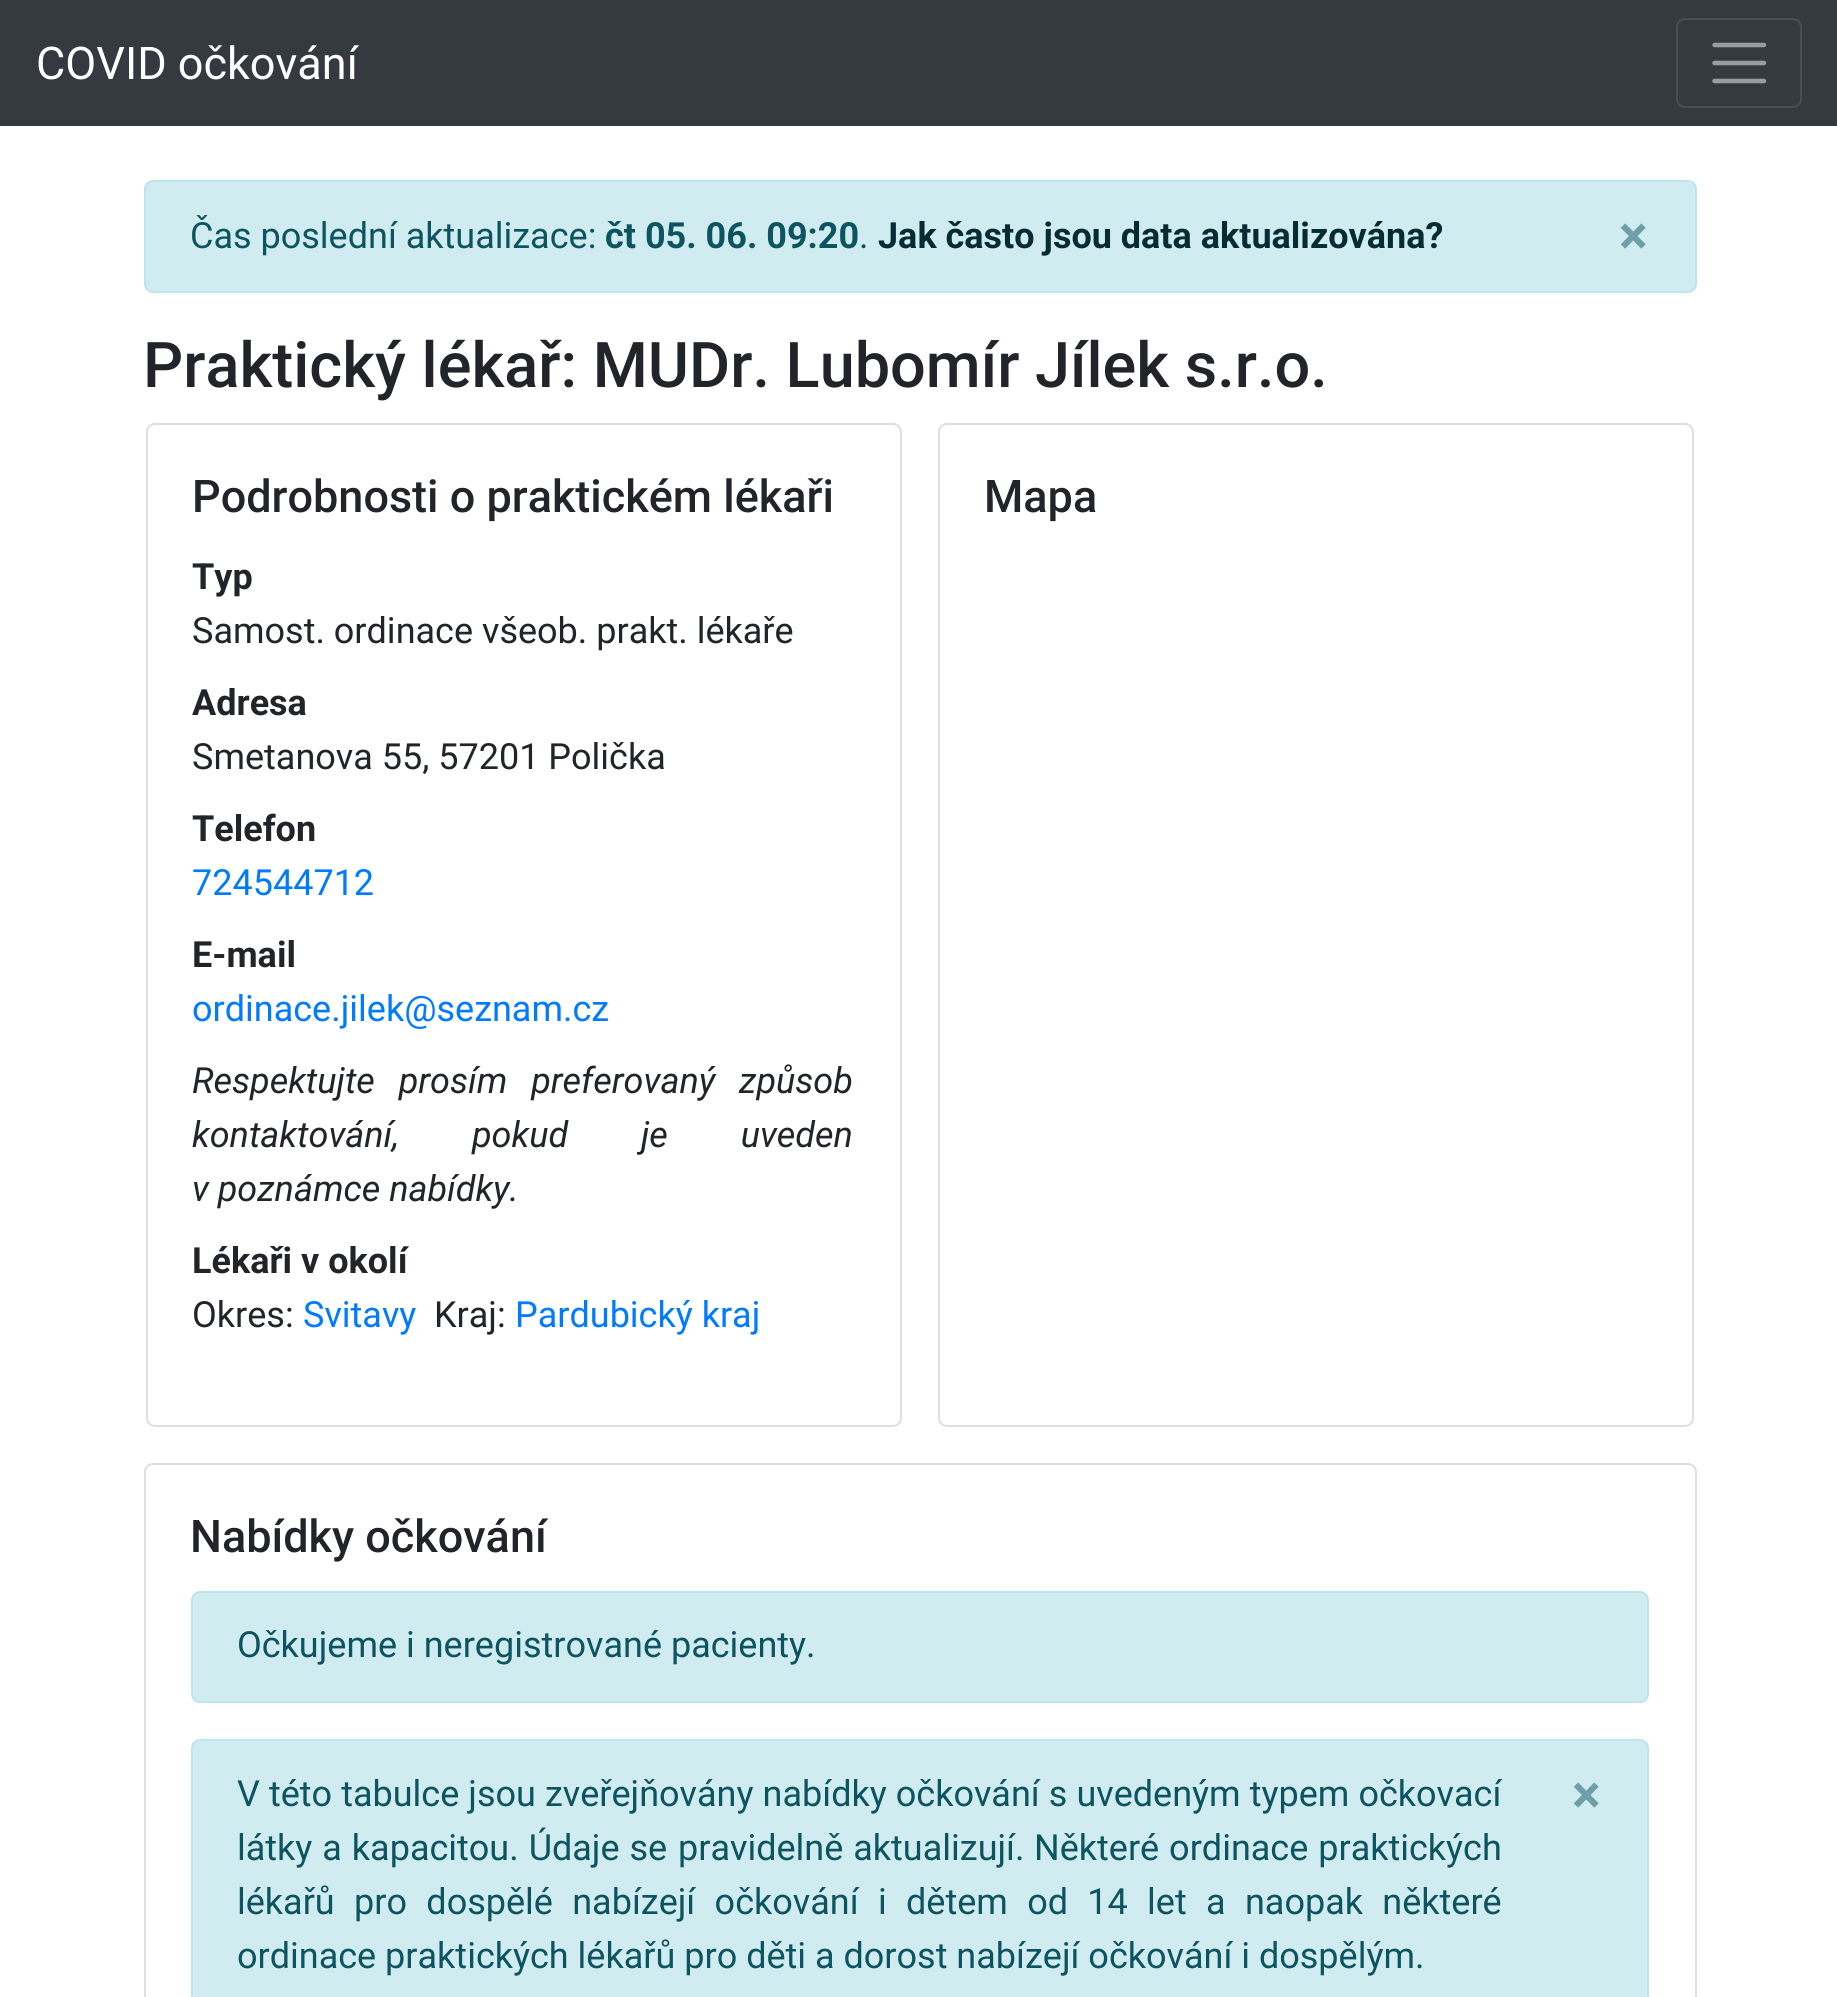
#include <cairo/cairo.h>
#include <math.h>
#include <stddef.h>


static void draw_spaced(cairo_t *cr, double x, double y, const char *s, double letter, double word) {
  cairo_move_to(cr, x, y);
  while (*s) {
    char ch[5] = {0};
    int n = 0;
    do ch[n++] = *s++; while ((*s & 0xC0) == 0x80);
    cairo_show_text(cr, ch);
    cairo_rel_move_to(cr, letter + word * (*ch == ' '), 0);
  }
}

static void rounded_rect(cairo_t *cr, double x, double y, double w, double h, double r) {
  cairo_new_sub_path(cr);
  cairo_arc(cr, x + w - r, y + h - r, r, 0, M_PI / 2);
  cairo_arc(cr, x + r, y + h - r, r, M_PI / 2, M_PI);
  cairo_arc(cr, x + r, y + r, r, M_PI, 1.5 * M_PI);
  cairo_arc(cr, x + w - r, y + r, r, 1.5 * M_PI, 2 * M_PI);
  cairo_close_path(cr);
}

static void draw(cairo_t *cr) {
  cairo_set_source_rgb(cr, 1, 1, 1);
  cairo_paint(cr);
  cairo_set_source_rgb(cr, 52 / 255.0, 58 / 255.0, 64 / 255.0);
  cairo_rectangle(cr, 0, 0, 1837, 126);
  cairo_fill(cr);
  rounded_rect(cr, 1677, 19, 124, 88, 8);
  cairo_set_source_rgb(cr, 72 / 255.0, 78 / 255.0, 83 / 255.0);
  cairo_stroke(cr);
  cairo_new_path(cr);
  cairo_move_to(cr, 1714.5, 45);
  cairo_line_to(cr, 1764, 45);
  cairo_move_to(cr, 1714.5, 63);
  cairo_line_to(cr, 1764, 63);
  cairo_move_to(cr, 1714.5, 81);
  cairo_line_to(cr, 1764, 81);
  cairo_set_source_rgb(cr, 154 / 255.0, 157 / 255.0, 160 / 255.0);
  cairo_set_line_width(cr, 4.5);
  cairo_set_line_cap(cr, CAIRO_LINE_CAP_ROUND);
  cairo_stroke(cr);
  cairo_set_source_rgb(cr, 209 / 255.0, 236 / 255.0, 241 / 255.0);
  rounded_rect(cr, 145, 181, 1551, 111, 8);
  cairo_fill_preserve(cr);
  cairo_set_source_rgb(cr, 190 / 255.0, 229 / 255.0, 235 / 255.0);
  cairo_set_line_width(cr, 2);
  cairo_set_line_cap(cr, CAIRO_LINE_CAP_BUTT);
  cairo_stroke(cr);
  rounded_rect(cr, 147, 424, 754, 1002, 8);
  cairo_set_source_rgb(cr, 223 / 255.0, 223 / 255.0, 223 / 255.0);
  cairo_stroke(cr);
  rounded_rect(cr, 939, 424, 754, 1002, 8);
  cairo_stroke(cr);
  rounded_rect(cr, 145, 1464, 1551, 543, 8);
  cairo_stroke(cr);
  cairo_set_source_rgb(cr, 209 / 255.0, 236 / 255.0, 241 / 255.0);
  rounded_rect(cr, 192, 1592, 1456, 110, 8);
  cairo_fill_preserve(cr);
  cairo_set_source_rgb(cr, 190 / 255.0, 229 / 255.0, 235 / 255.0);
  cairo_stroke(cr);
  cairo_set_source_rgb(cr, 209 / 255.0, 236 / 255.0, 241 / 255.0);
  rounded_rect(cr, 192, 1740, 1456, 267, 8);
  cairo_fill_preserve(cr);
  cairo_set_source_rgb(cr, 190 / 255.0, 229 / 255.0, 235 / 255.0);
  cairo_stroke(cr);
  cairo_select_font_face(cr, "Roboto", CAIRO_FONT_SLANT_NORMAL, CAIRO_FONT_WEIGHT_NORMAL);
  cairo_set_font_size(cr, 45);
  cairo_set_source_rgb(cr, 1, 1, 1);
  cairo_move_to(cr, 36, 79);
  cairo_show_text(cr, "COVID očkování");
  cairo_set_font_size(cr, 36);
  cairo_set_source_rgb(cr, 12 / 255.0, 84 / 255.0, 96 / 255.0);
  cairo_move_to(cr, 190, 248);
  cairo_show_text(cr, "Čas poslední aktualizace:");
  cairo_select_font_face(cr, "Roboto", CAIRO_FONT_SLANT_NORMAL, CAIRO_FONT_WEIGHT_BOLD);
  cairo_move_to(cr, 605, 248);
  cairo_show_text(cr, "čt 05. 06. 09:20");
  cairo_select_font_face(cr, "Roboto", CAIRO_FONT_SLANT_NORMAL, CAIRO_FONT_WEIGHT_NORMAL);
  cairo_move_to(cr, 859, 248);
  cairo_show_text(cr, ".");
  cairo_select_font_face(cr, "Roboto", CAIRO_FONT_SLANT_NORMAL, CAIRO_FONT_WEIGHT_BOLD);
  cairo_set_source_rgb(cr, 6 / 255.0, 44 / 255.0, 51 / 255.0);
  cairo_move_to(cr, 878, 248);
  cairo_show_text(cr, "Jak často jsou data aktualizována?");
  cairo_set_font_size(cr, 54);
  cairo_set_source_rgb(cr, 111 / 255.0, 160 / 255.0, 169 / 255.0);
  cairo_move_to(cr, 1619, 254);
  cairo_show_text(cr, "×");
  cairo_select_font_face(cr, "Roboto Medium", CAIRO_FONT_SLANT_NORMAL, CAIRO_FONT_WEIGHT_NORMAL);
  cairo_set_font_size(cr, 63);
  cairo_set_source_rgb(cr, 33 / 255.0, 37 / 255.0, 41 / 255.0);
  cairo_move_to(cr, 143, 387);
  cairo_show_text(cr, "Praktický lékař: MUDr. Lubomír Jílek s.r.o.");
  cairo_set_font_size(cr, 45);
  cairo_move_to(cr, 192, 512);
  cairo_show_text(cr, "Podrobnosti o praktickém lékaři");
  cairo_select_font_face(cr, "Roboto", CAIRO_FONT_SLANT_NORMAL, CAIRO_FONT_WEIGHT_BOLD);
  cairo_set_font_size(cr, 36);
  cairo_move_to(cr, 192, 589);
  cairo_show_text(cr, "Typ");
  cairo_select_font_face(cr, "Roboto", CAIRO_FONT_SLANT_NORMAL, CAIRO_FONT_WEIGHT_NORMAL);
  cairo_move_to(cr, 192, 643);
  cairo_show_text(cr, "Samost. ordinace všeob. prakt. lékaře");
  cairo_select_font_face(cr, "Roboto", CAIRO_FONT_SLANT_NORMAL, CAIRO_FONT_WEIGHT_BOLD);
  cairo_move_to(cr, 192, 715);
  cairo_show_text(cr, "Adresa");
  cairo_select_font_face(cr, "Roboto", CAIRO_FONT_SLANT_NORMAL, CAIRO_FONT_WEIGHT_NORMAL);
  cairo_move_to(cr, 192, 769);
  cairo_show_text(cr, "Smetanova 55, 57201 Polička");
  cairo_select_font_face(cr, "Roboto", CAIRO_FONT_SLANT_NORMAL, CAIRO_FONT_WEIGHT_BOLD);
  cairo_move_to(cr, 192, 841);
  cairo_show_text(cr, "Telefon");
  cairo_select_font_face(cr, "Roboto", CAIRO_FONT_SLANT_NORMAL, CAIRO_FONT_WEIGHT_NORMAL);
  cairo_set_source_rgb(cr, 0, 123 / 255.0, 1);
  cairo_move_to(cr, 192, 895);
  cairo_show_text(cr, "724544712");
  cairo_select_font_face(cr, "Roboto", CAIRO_FONT_SLANT_NORMAL, CAIRO_FONT_WEIGHT_BOLD);
  cairo_set_source_rgb(cr, 33 / 255.0, 37 / 255.0, 41 / 255.0);
  cairo_move_to(cr, 192, 967);
  cairo_show_text(cr, "E-mail");
  cairo_select_font_face(cr, "Roboto", CAIRO_FONT_SLANT_NORMAL, CAIRO_FONT_WEIGHT_NORMAL);
  cairo_set_source_rgb(cr, 0, 123 / 255.0, 1);
  cairo_move_to(cr, 192, 1021);
  cairo_show_text(cr, "ordinace.jilek@seznam.cz");
  cairo_select_font_face(cr, "Roboto", CAIRO_FONT_SLANT_ITALIC, CAIRO_FONT_WEIGHT_NORMAL);
  cairo_set_source_rgb(cr, 33 / 255.0, 37 / 255.0, 41 / 255.0);
  draw_spaced(cr, 192, 1093, "Respektujte prosím preferovaný způsob", 0, 15);
  draw_spaced(cr, 192, 1147, "kontaktování, pokud je uveden", 0, 64);
  cairo_move_to(cr, 192, 1201);
  cairo_show_text(cr, "v poznámce nabídky.");
  cairo_select_font_face(cr, "Roboto", CAIRO_FONT_SLANT_NORMAL, CAIRO_FONT_WEIGHT_BOLD);
  cairo_move_to(cr, 192, 1273);
  cairo_show_text(cr, "Lékaři v okolí");
  cairo_select_font_face(cr, "Roboto", CAIRO_FONT_SLANT_NORMAL, CAIRO_FONT_WEIGHT_NORMAL);
  cairo_move_to(cr, 192, 1327);
  cairo_show_text(cr, "Okres:");
  cairo_set_source_rgb(cr, 0, 123 / 255.0, 1);
  cairo_move_to(cr, 303, 1327);
  cairo_show_text(cr, "Svitavy");
  cairo_set_source_rgb(cr, 33 / 255.0, 37 / 255.0, 41 / 255.0);
  cairo_move_to(cr, 434, 1327);
  cairo_show_text(cr, "Kraj:");
  cairo_set_source_rgb(cr, 0, 123 / 255.0, 1);
  cairo_move_to(cr, 515, 1327);
  cairo_show_text(cr, "Pardubický kraj");
  cairo_select_font_face(cr, "Roboto Medium", CAIRO_FONT_SLANT_NORMAL, CAIRO_FONT_WEIGHT_NORMAL);
  cairo_set_font_size(cr, 45);
  cairo_set_source_rgb(cr, 33 / 255.0, 37 / 255.0, 41 / 255.0);
  cairo_move_to(cr, 984, 512);
  cairo_show_text(cr, "Mapa");
  cairo_move_to(cr, 190, 1552);
  cairo_show_text(cr, "Nabídky očkování");
  cairo_select_font_face(cr, "Roboto", CAIRO_FONT_SLANT_NORMAL, CAIRO_FONT_WEIGHT_NORMAL);
  cairo_set_font_size(cr, 36);
  cairo_set_source_rgb(cr, 12 / 255.0, 84 / 255.0, 96 / 255.0);
  cairo_move_to(cr, 237, 1657);
  cairo_show_text(cr, "Očkujeme i neregistrované pacienty.");
  draw_spaced(cr, 237, 1806, "V této tabulce jsou zveřejňovány nabídky očkování s uvedeným typem očkovací", 0, 0.1);
  draw_spaced(cr, 237, 1860, "látky a kapacitou. Údaje se", 0, 1);
  draw_spaced(cr, 678, 1860, "pravidelně aktualizují.", 0, 1);
  draw_spaced(cr, 1034, 1860, "Některé ordinace praktických", 0, 1);
  draw_spaced(cr, 237, 1914, "lékařů pro dospělé nabízejí očkování i dětem od 14 let a naopak některé", 0, 10.4);
  cairo_move_to(cr, 237, 1968);
  cairo_show_text(cr, "ordinace praktických lékařů pro děti a dorost nabízejí očkování i dospělým.");
  cairo_select_font_face(cr, "Roboto", CAIRO_FONT_SLANT_NORMAL, CAIRO_FONT_WEIGHT_BOLD);
  cairo_set_font_size(cr, 54);
  cairo_set_source_rgb(cr, 111 / 255.0, 160 / 255.0, 169 / 255.0);
  cairo_move_to(cr, 1572, 1813);
  cairo_show_text(cr, "×");
}

int main(void) {
  cairo_surface_t *surface = cairo_image_surface_create(CAIRO_FORMAT_RGB24, 1837, 1997);
  cairo_t *cr = cairo_create(surface);
  cairo_font_options_t *options = cairo_font_options_create();
  cairo_font_options_set_hint_metrics(options, CAIRO_HINT_METRICS_OFF);
  cairo_font_options_set_hint_style(options, CAIRO_HINT_STYLE_NONE);
  cairo_set_font_options(cr, options);
  cairo_set_miter_limit(cr, 4);
  draw(cr);
  cairo_surface_write_to_png(surface, "out.png");
  cairo_font_options_destroy(options);
  cairo_destroy(cr);
  cairo_surface_destroy(surface);
  return 0;
}
